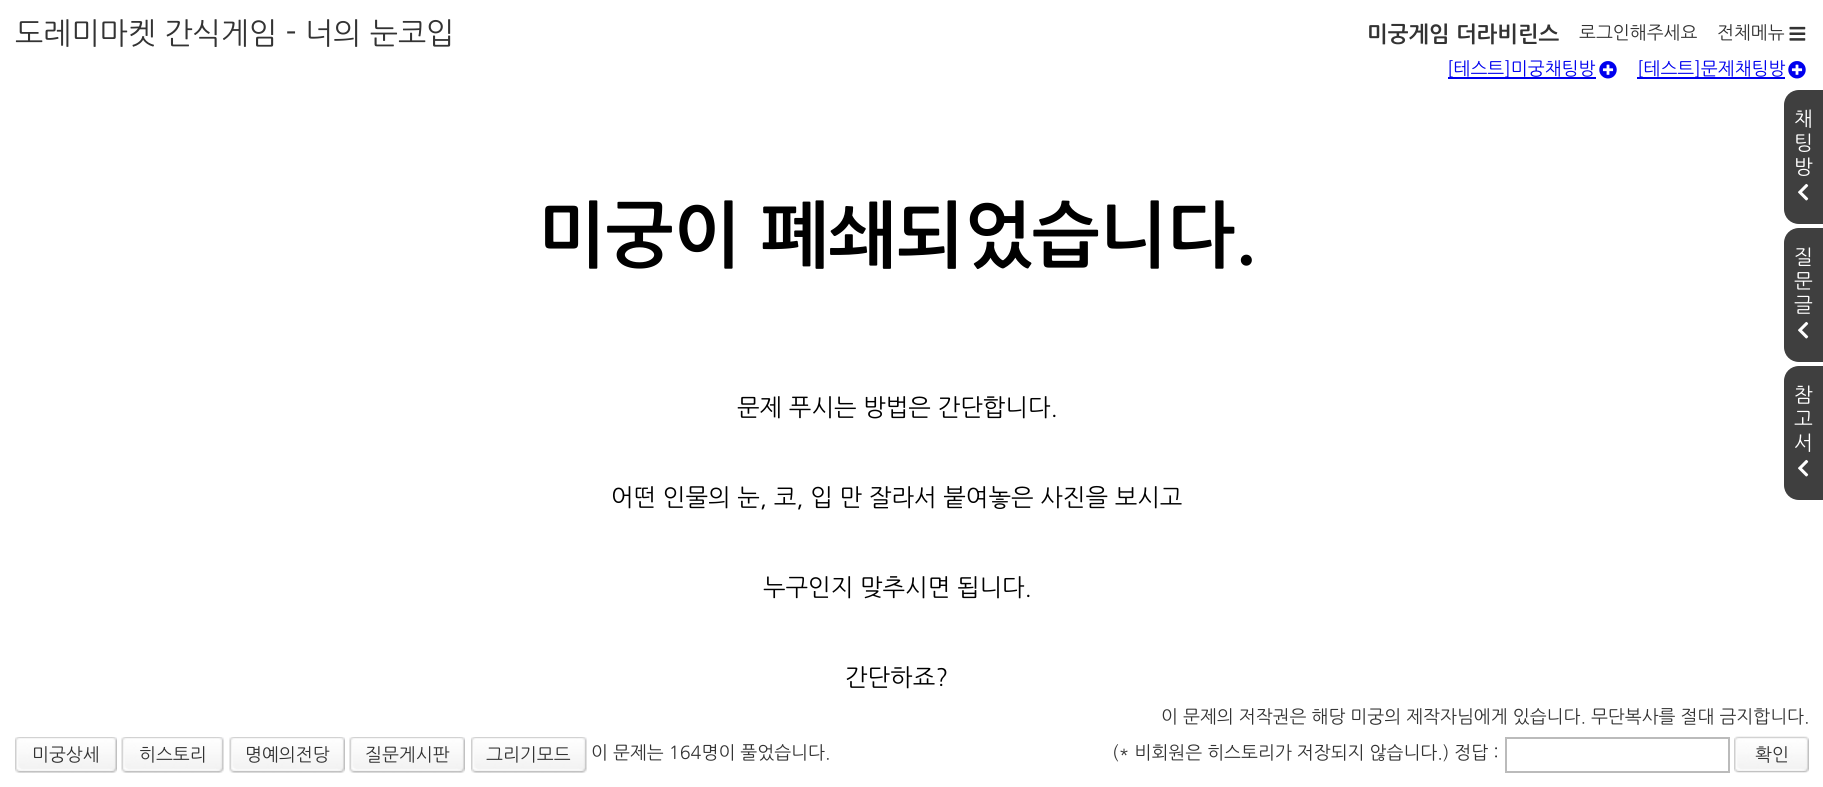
#include <cairo/cairo.h>
#include <math.h>
#include <stddef.h>


static void draw_image(cairo_t *cr, const char *path, double x, double y, double w, double h) {
  cairo_surface_t *image = cairo_image_surface_create_from_png(path);
  cairo_save(cr);
  cairo_set_source_surface(cr, image, x, y);
  cairo_rectangle(cr, x, y, w, h);
  cairo_fill(cr);
  cairo_restore(cr);
  cairo_surface_destroy(image);
}

static void draw(cairo_t *cr) {
  cairo_set_source_rgb(cr, 1, 1, 1);
  cairo_paint(cr);
  draw_image(cr, "images/1.png", 1789, 26, 17, 15);
  cairo_set_source_rgb(cr, 0, 0, 238 / 255.0);
  cairo_rectangle(cr, 1448, 77, 148, 2);
  cairo_fill(cr);
  draw_image(cr, "images/2.png", 1599, 61, 18, 18);
  cairo_rectangle(cr, 1637, 77, 148, 2);
  cairo_fill(cr);
  draw_image(cr, "images/2.png", 1788, 61, 18, 18);
  draw_image(cr, "images/3.png", 15, 737, 102, 36);
  draw_image(cr, "images/4.png", 121, 737, 103, 36);
  draw_image(cr, "images/5.png", 229, 737, 116, 36);
  draw_image(cr, "images/5.png", 349, 737, 116, 36);
  draw_image(cr, "images/6.png", 471, 737, 116, 36);
  cairo_rectangle(cr, 1506, 738, 223, 34);
  cairo_set_source_rgb(cr, 187 / 255.0, 187 / 255.0, 187 / 255.0);
  cairo_stroke(cr);
  draw_image(cr, "images/7.png", 1734, 736, 75, 37);
  cairo_set_source_rgb(cr, 63 / 255.0, 63 / 255.0, 63 / 255.0);
  cairo_new_path(cr);
  cairo_move_to(cr, 1799, 90);
  cairo_line_to(cr, 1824, 90);
  cairo_line_to(cr, 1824, 224);
  cairo_line_to(cr, 1799, 224);
  cairo_curve_to(cr, 1790.5, 224, 1784, 217.5, 1784, 209);
  cairo_line_to(cr, 1784, 105);
  cairo_curve_to(cr, 1784, 96.5, 1790.5, 90, 1799, 90);
  cairo_close_path(cr);
  cairo_fill(cr);
  draw_image(cr, "images/8.png", 1798, 183, 11, 18);
  cairo_new_path(cr);
  cairo_move_to(cr, 1799, 228);
  cairo_line_to(cr, 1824, 228);
  cairo_line_to(cr, 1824, 362);
  cairo_line_to(cr, 1799, 362);
  cairo_curve_to(cr, 1790.5, 362, 1784, 355.5, 1784, 347);
  cairo_line_to(cr, 1784, 243);
  cairo_curve_to(cr, 1784, 234.5, 1790.5, 228, 1799, 228);
  cairo_close_path(cr);
  cairo_fill(cr);
  draw_image(cr, "images/8.png", 1798, 321, 11, 18);
  cairo_new_path(cr);
  cairo_move_to(cr, 1799, 366);
  cairo_line_to(cr, 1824, 366);
  cairo_line_to(cr, 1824, 500);
  cairo_line_to(cr, 1799, 500);
  cairo_curve_to(cr, 1790.5, 500, 1784, 493.5, 1784, 485);
  cairo_line_to(cr, 1784, 381);
  cairo_curve_to(cr, 1784, 372.5, 1790.5, 366, 1799, 366);
  cairo_close_path(cr);
  cairo_fill(cr);
  draw_image(cr, "images/8.png", 1798, 459, 11, 18);
  cairo_select_font_face(cr, "NanumGothic", CAIRO_FONT_SLANT_NORMAL, CAIRO_FONT_WEIGHT_NORMAL);
  cairo_set_font_size(cr, 30);
  cairo_set_source_rgb(cr, 51 / 255.0, 51 / 255.0, 51 / 255.0);
  cairo_move_to(cr, 15, 44);
  cairo_show_text(cr, "도레미마켓 간식게임 - 너의 눈코입");
  cairo_select_font_face(cr, "NanumGothic", CAIRO_FONT_SLANT_NORMAL, CAIRO_FONT_WEIGHT_BOLD);
  cairo_set_font_size(cr, 22);
  cairo_move_to(cr, 1367, 42);
  cairo_show_text(cr, "미궁게임 더라비린스");
  cairo_select_font_face(cr, "NanumGothic", CAIRO_FONT_SLANT_NORMAL, CAIRO_FONT_WEIGHT_NORMAL);
  cairo_set_font_size(cr, 18);
  cairo_move_to(cr, 1579, 39);
  cairo_show_text(cr, "로그인해주세요");
  cairo_move_to(cr, 1717, 39);
  cairo_show_text(cr, "전체메뉴");
  cairo_set_source_rgb(cr, 0, 0, 238 / 255.0);
  cairo_move_to(cr, 1447, 75);
  cairo_show_text(cr, "[테스트]미궁채팅방");
  cairo_move_to(cr, 1637, 75);
  cairo_show_text(cr, "[테스트]문제채팅방");
  cairo_select_font_face(cr, "NanumGothic", CAIRO_FONT_SLANT_NORMAL, CAIRO_FONT_WEIGHT_BOLD);
  cairo_set_font_size(cr, 72);
  cairo_set_source_rgb(cr, 0, 0, 0);
  cairo_move_to(cr, 538, 261);
  cairo_show_text(cr, "미궁이 폐쇄되었습니다.");
  cairo_select_font_face(cr, "NanumGothic", CAIRO_FONT_SLANT_NORMAL, CAIRO_FONT_WEIGHT_NORMAL);
  cairo_set_font_size(cr, 24);
  cairo_move_to(cr, 737, 416);
  cairo_show_text(cr, "문제 푸시는 방법은 간단합니다.");
  cairo_move_to(cr, 611, 506);
  cairo_show_text(cr, "어떤 인물의 눈, 코, 입 만 잘라서 붙여놓은 사진을 보시고");
  cairo_move_to(cr, 763, 596);
  cairo_show_text(cr, "누구인지 맞추시면 됩니다.");
  cairo_move_to(cr, 845, 686);
  cairo_show_text(cr, "간단하죠?");
  cairo_set_font_size(cr, 18);
  cairo_set_source_rgb(cr, 51 / 255.0, 51 / 255.0, 51 / 255.0);
  cairo_move_to(cr, 1161, 723);
  cairo_show_text(cr, "이 문제의 저작권은 해당 미궁의 제작자님에게 있습니다. 무단복사를 절대 금지합니다.");
  cairo_move_to(cr, 32, 761);
  cairo_show_text(cr, "미궁상세");
  cairo_move_to(cr, 139, 761);
  cairo_show_text(cr, "히스토리");
  cairo_move_to(cr, 245, 761);
  cairo_show_text(cr, "명예의전당");
  cairo_move_to(cr, 365, 761);
  cairo_show_text(cr, "질문게시판");
  cairo_move_to(cr, 486, 761);
  cairo_show_text(cr, "그리기모드");
  cairo_move_to(cr, 591, 759);
  cairo_show_text(cr, "이 문제는 164명이 풀었습니다.");
  cairo_move_to(cr, 1112, 759);
  cairo_show_text(cr, "(* 비회원은 히스토리가 저장되지 않습니다.) 정답 :");
  cairo_move_to(cr, 1755, 761);
  cairo_show_text(cr, "확인");
  cairo_set_font_size(cr, 20);
  cairo_set_source_rgb(cr, 1, 1, 1);
  cairo_move_to(cr, 1794, 126);
  cairo_show_text(cr, "채");
  cairo_move_to(cr, 1794, 150);
  cairo_show_text(cr, "팅");
  cairo_move_to(cr, 1794, 174);
  cairo_show_text(cr, "방");
  cairo_move_to(cr, 1794, 264);
  cairo_show_text(cr, "질");
  cairo_move_to(cr, 1794, 288);
  cairo_show_text(cr, "문");
  cairo_move_to(cr, 1794, 312);
  cairo_show_text(cr, "글");
  cairo_move_to(cr, 1794, 402);
  cairo_show_text(cr, "참");
  cairo_move_to(cr, 1794, 426);
  cairo_show_text(cr, "고");
  cairo_move_to(cr, 1794, 450);
  cairo_show_text(cr, "서");
}

int main(void) {
  cairo_surface_t *surface = cairo_image_surface_create(CAIRO_FORMAT_RGB24, 1823, 787);
  cairo_t *cr = cairo_create(surface);
  cairo_font_options_t *options = cairo_font_options_create();
  cairo_font_options_set_hint_metrics(options, CAIRO_HINT_METRICS_OFF);
  cairo_font_options_set_hint_style(options, CAIRO_HINT_STYLE_NONE);
  cairo_set_font_options(cr, options);
  cairo_set_miter_limit(cr, 4);
  draw(cr);
  cairo_surface_write_to_png(surface, "out.png");
  cairo_font_options_destroy(options);
  cairo_destroy(cr);
  cairo_surface_destroy(surface);
  return 0;
}
